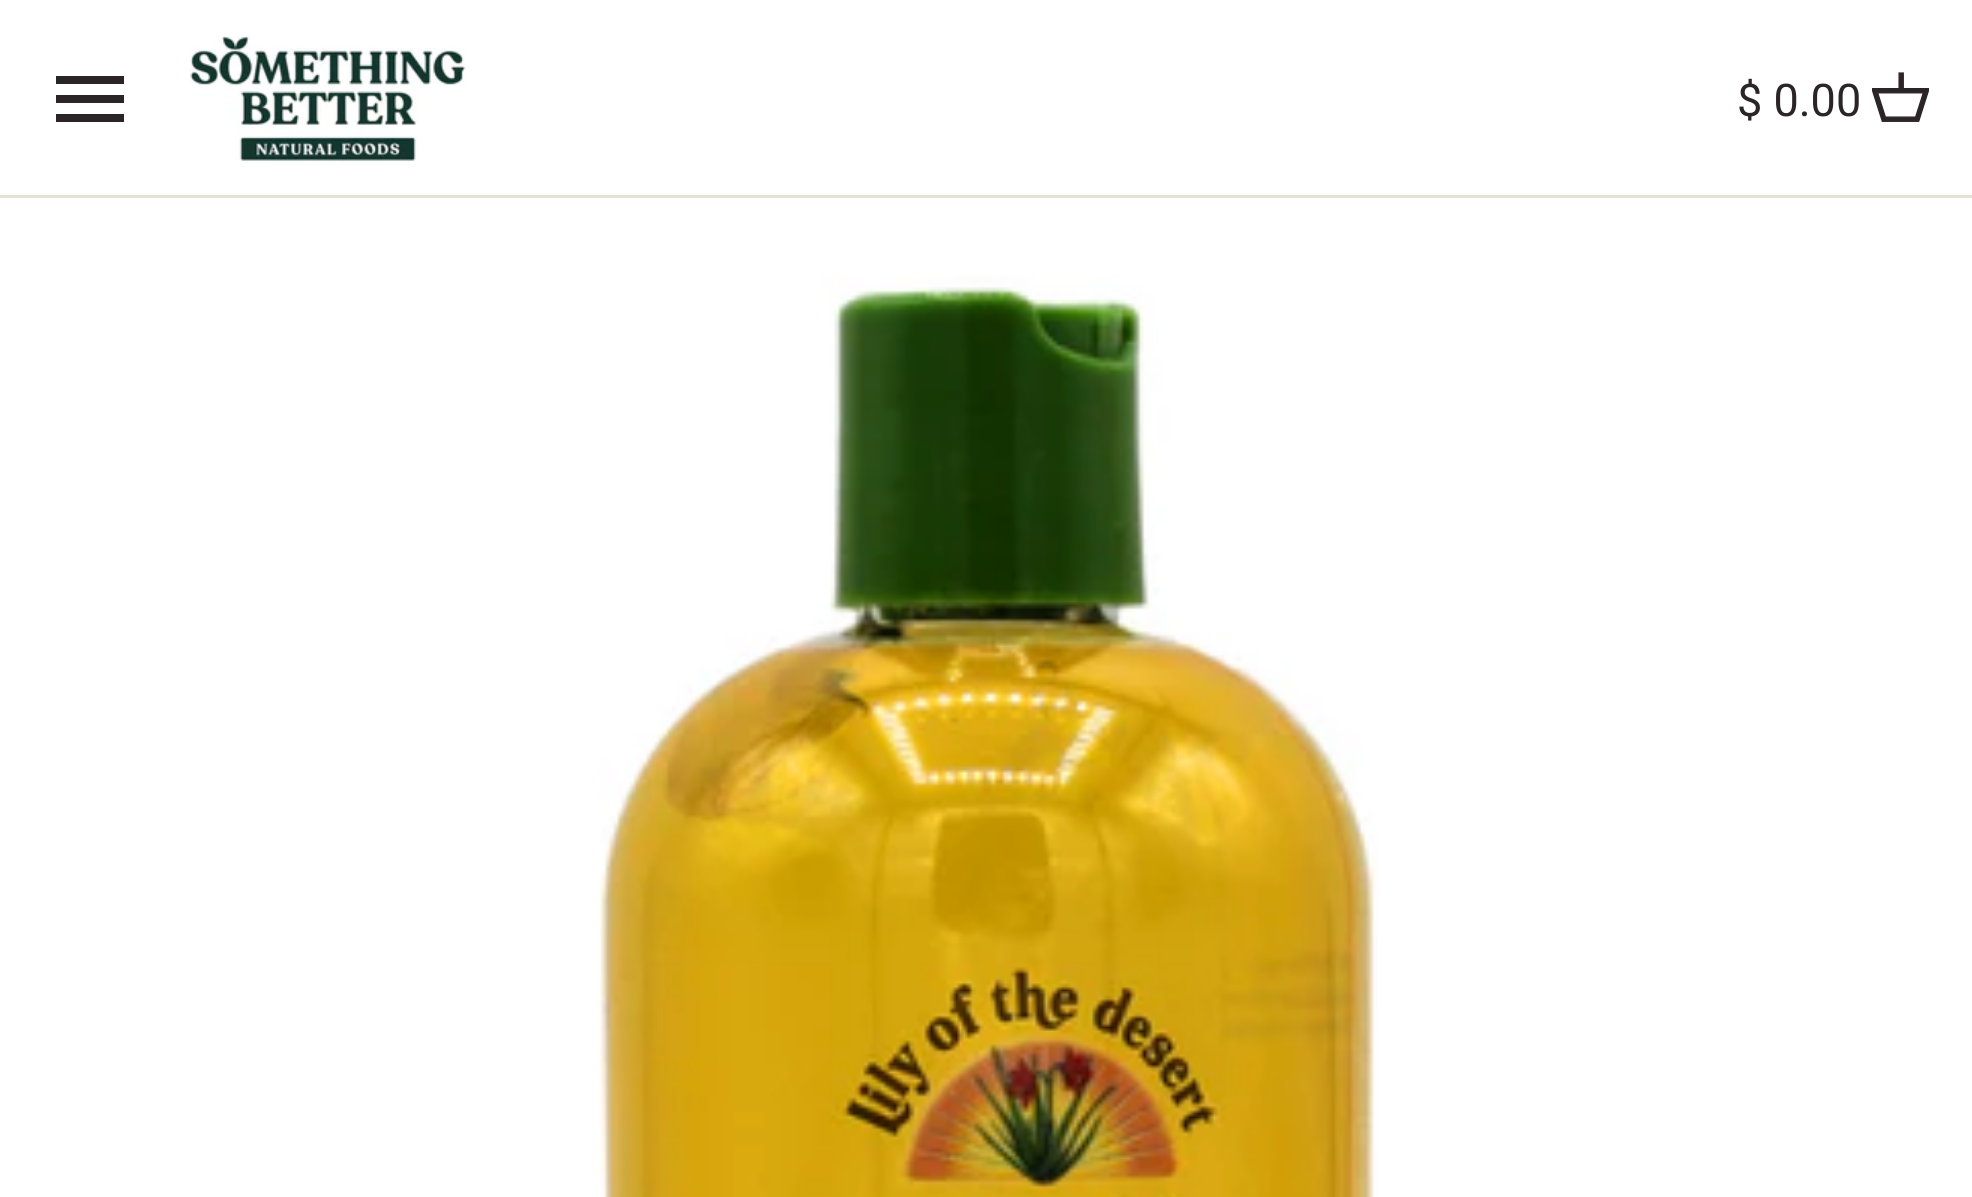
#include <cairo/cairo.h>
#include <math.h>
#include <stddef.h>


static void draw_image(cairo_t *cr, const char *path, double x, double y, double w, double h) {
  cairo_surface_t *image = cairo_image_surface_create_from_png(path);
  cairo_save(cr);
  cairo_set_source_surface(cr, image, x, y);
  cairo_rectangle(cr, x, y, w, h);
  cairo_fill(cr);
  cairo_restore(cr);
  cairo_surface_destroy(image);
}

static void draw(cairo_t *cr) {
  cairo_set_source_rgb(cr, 1, 1, 1);
  cairo_paint(cr);
  cairo_set_source_rgb(cr, 229 / 255.0, 226 / 255.0, 212 / 255.0);
  cairo_rectangle(cr, 0, 195, 1972, 3);
  cairo_fill(cr);
  cairo_set_source_rgb(cr, 44 / 255.0, 37 / 255.0, 40 / 255.0);
  cairo_new_path(cr);
  cairo_move_to(cr, 56, 122);
  cairo_line_to(cr, 124, 122);
  cairo_line_to(cr, 124, 114);
  cairo_line_to(cr, 56, 114);
  cairo_close_path(cr);
  cairo_move_to(cr, 56, 103);
  cairo_line_to(cr, 124, 103);
  cairo_line_to(cr, 124, 95);
  cairo_line_to(cr, 56, 95);
  cairo_close_path(cr);
  cairo_move_to(cr, 56, 76);
  cairo_line_to(cr, 56, 84);
  cairo_line_to(cr, 124, 84);
  cairo_line_to(cr, 124, 76);
  cairo_close_path(cr);
  cairo_fill(cr);
  draw_image(cr, "images/1.png", 189, 35, 277, 127);
  draw_image(cr, "images/2.png", 1872, 72, 57, 50);
  draw_image(cr, "images/3.png", 598, 275, 780, 922);
  cairo_select_font_face(cr, "Roboto", CAIRO_FONT_SLANT_NORMAL, CAIRO_FONT_WEIGHT_NORMAL);
  cairo_set_font_size(cr, 45);
  cairo_move_to(cr, 1737, 116);
  cairo_show_text(cr, "$ 0.00");
}

int main(void) {
  cairo_surface_t *surface = cairo_image_surface_create(CAIRO_FORMAT_RGB24, 1972, 1197);
  cairo_t *cr = cairo_create(surface);
  cairo_font_options_t *options = cairo_font_options_create();
  cairo_font_options_set_hint_metrics(options, CAIRO_HINT_METRICS_OFF);
  cairo_font_options_set_hint_style(options, CAIRO_HINT_STYLE_NONE);
  cairo_set_font_options(cr, options);
  cairo_set_miter_limit(cr, 4);
  draw(cr);
  cairo_surface_write_to_png(surface, "out.png");
  cairo_font_options_destroy(options);
  cairo_destroy(cr);
  cairo_surface_destroy(surface);
  return 0;
}
